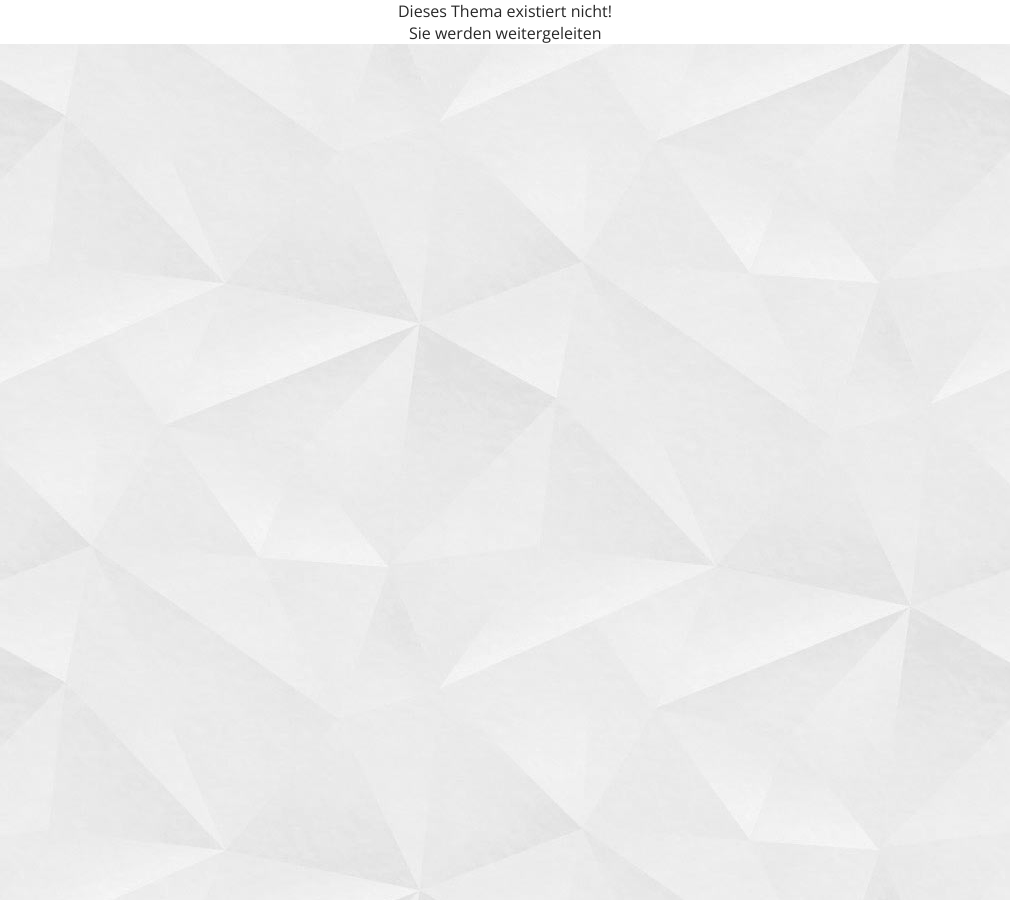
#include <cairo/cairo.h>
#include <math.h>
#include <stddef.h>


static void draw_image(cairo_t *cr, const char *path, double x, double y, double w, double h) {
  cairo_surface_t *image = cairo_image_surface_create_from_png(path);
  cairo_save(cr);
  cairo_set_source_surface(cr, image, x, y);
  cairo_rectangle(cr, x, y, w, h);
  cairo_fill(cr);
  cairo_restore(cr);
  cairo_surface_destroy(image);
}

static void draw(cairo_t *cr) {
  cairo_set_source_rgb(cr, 1, 1, 1);
  cairo_paint(cr);
  draw_image(cr, "images/1.png", 0, 44, 1010, 856);
  cairo_select_font_face(cr, "Open Sans", CAIRO_FONT_SLANT_NORMAL, CAIRO_FONT_WEIGHT_NORMAL);
  cairo_set_font_size(cr, 16);
  cairo_set_source_rgb(cr, 40 / 255.0, 40 / 255.0, 40 / 255.0);
  cairo_move_to(cr, 398, 17);
  cairo_show_text(cr, "Dieses Thema existiert nicht!");
  cairo_move_to(cr, 409, 39);
  cairo_show_text(cr, "Sie werden weitergeleiten");
}

int main(void) {
  cairo_surface_t *surface = cairo_image_surface_create(CAIRO_FORMAT_RGB24, 1010, 900);
  cairo_t *cr = cairo_create(surface);
  cairo_font_options_t *options = cairo_font_options_create();
  cairo_font_options_set_hint_metrics(options, CAIRO_HINT_METRICS_OFF);
  cairo_font_options_set_hint_style(options, CAIRO_HINT_STYLE_NONE);
  cairo_set_font_options(cr, options);
  cairo_set_miter_limit(cr, 4);
  draw(cr);
  cairo_surface_write_to_png(surface, "out.png");
  cairo_font_options_destroy(options);
  cairo_destroy(cr);
  cairo_surface_destroy(surface);
  return 0;
}
